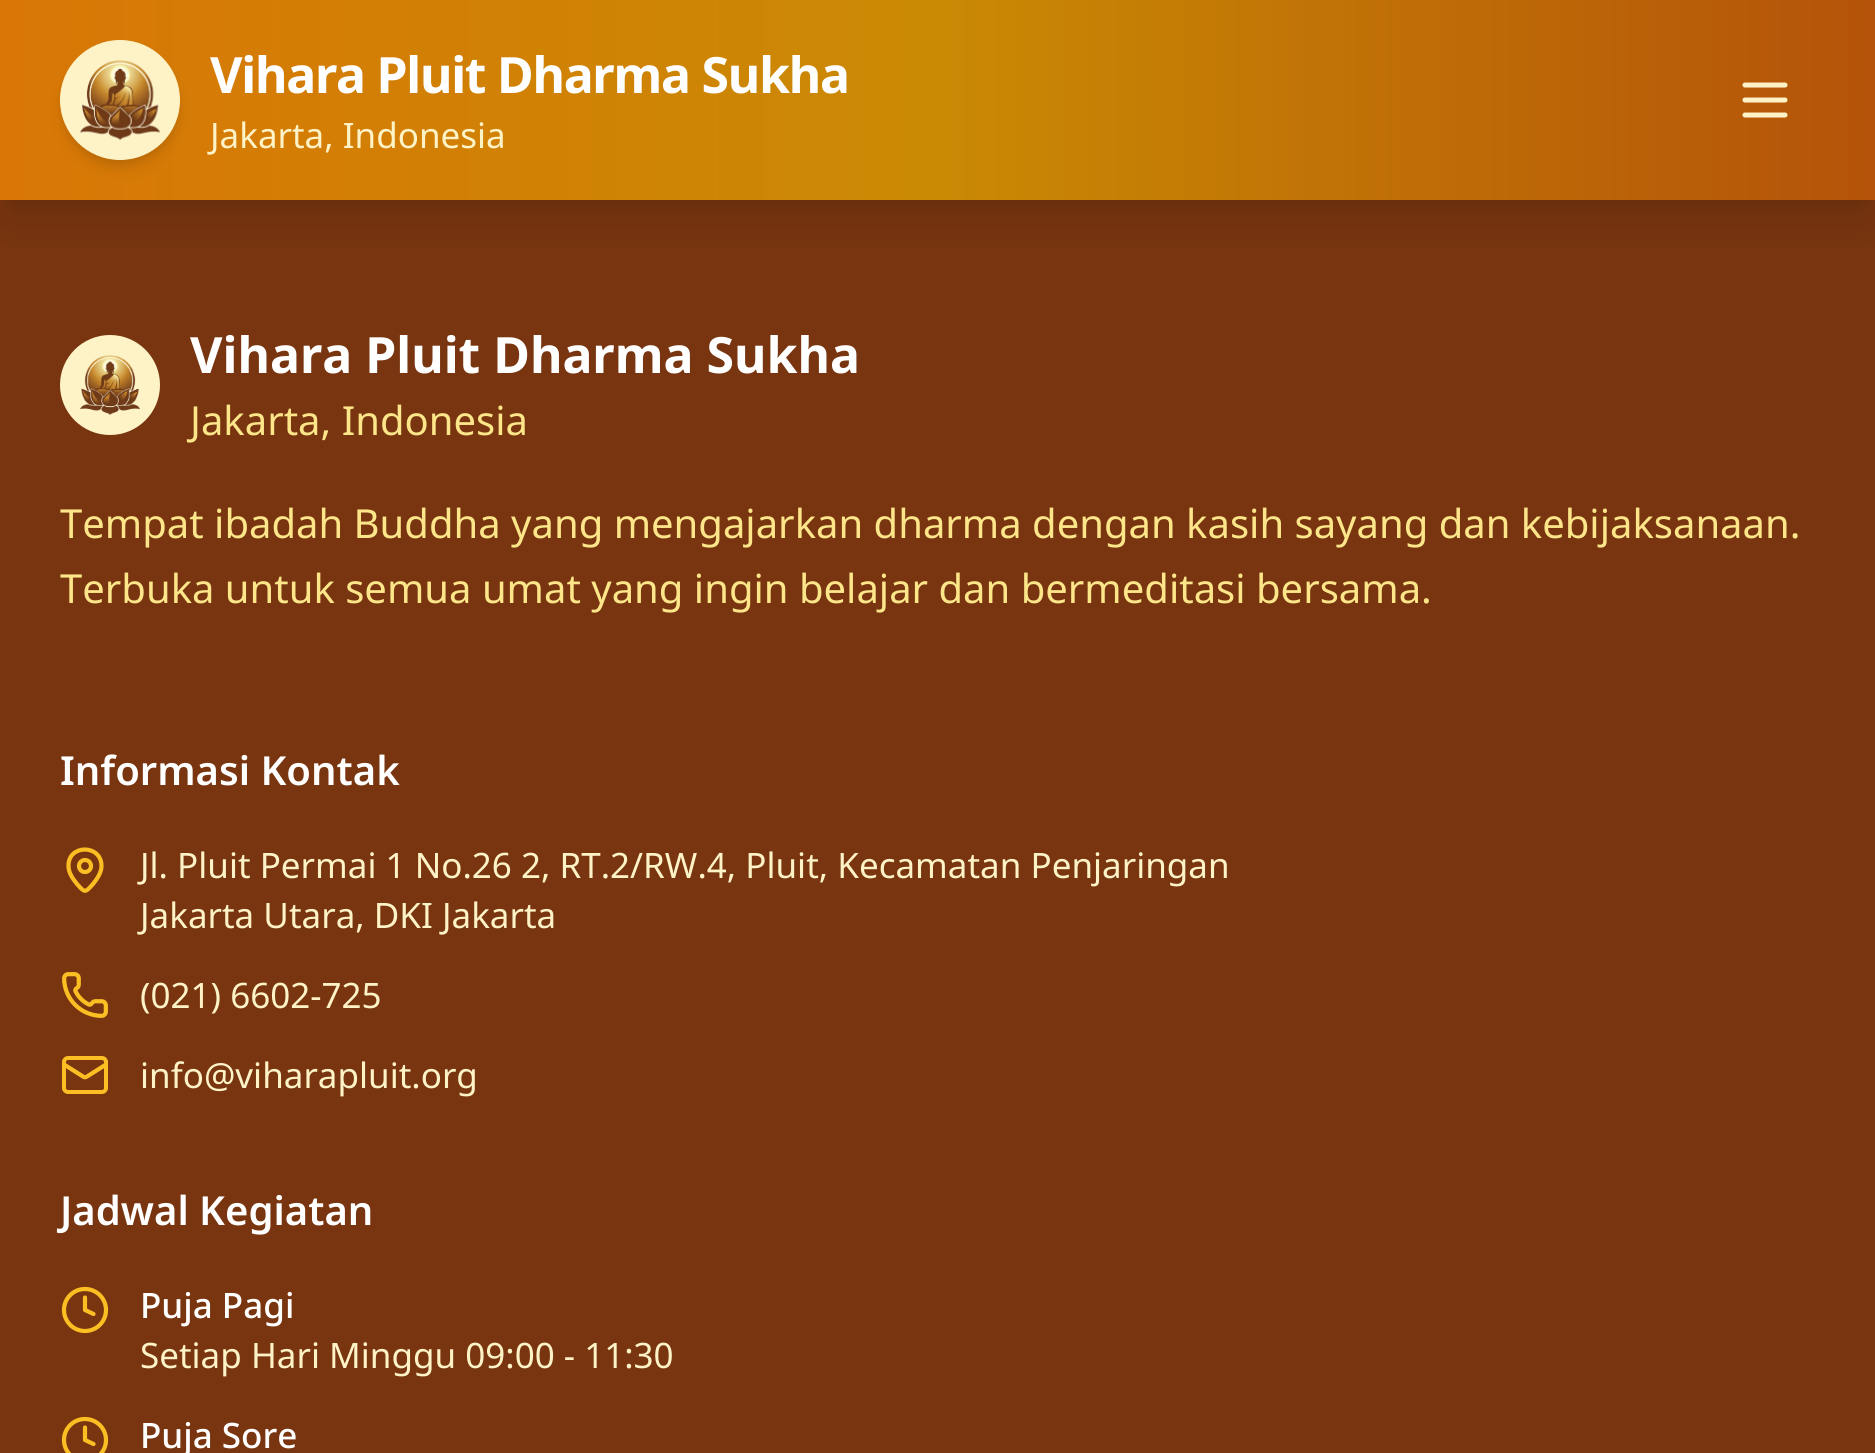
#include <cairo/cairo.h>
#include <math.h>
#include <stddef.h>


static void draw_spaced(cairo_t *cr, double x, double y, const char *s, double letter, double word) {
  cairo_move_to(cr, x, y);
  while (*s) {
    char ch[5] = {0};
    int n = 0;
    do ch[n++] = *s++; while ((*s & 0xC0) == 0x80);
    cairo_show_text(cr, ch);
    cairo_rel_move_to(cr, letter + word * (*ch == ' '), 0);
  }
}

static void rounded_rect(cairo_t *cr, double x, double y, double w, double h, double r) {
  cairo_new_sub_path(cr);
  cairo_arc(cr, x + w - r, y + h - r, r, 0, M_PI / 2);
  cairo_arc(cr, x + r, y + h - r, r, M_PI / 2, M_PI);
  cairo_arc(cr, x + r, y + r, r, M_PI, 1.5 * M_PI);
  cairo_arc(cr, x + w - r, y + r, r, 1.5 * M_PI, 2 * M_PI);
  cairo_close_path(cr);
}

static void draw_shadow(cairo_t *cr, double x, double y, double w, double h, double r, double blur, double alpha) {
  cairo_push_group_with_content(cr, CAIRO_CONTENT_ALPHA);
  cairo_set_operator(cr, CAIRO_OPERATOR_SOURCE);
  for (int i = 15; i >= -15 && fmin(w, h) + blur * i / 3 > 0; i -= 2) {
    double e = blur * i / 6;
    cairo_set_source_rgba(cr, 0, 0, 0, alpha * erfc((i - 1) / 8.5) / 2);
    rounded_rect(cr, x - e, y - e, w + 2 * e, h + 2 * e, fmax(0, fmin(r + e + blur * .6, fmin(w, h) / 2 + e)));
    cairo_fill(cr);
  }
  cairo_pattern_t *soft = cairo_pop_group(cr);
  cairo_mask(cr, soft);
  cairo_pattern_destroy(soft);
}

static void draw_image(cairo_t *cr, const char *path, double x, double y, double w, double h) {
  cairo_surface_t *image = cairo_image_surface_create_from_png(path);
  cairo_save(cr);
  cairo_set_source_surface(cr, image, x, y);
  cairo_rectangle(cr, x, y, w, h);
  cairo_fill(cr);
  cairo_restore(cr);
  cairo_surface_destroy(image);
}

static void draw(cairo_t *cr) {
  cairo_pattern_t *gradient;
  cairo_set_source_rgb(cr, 120 / 255.0, 53 / 255.0, 15 / 255.0);
  cairo_paint(cr);
  cairo_set_source_rgb(cr, 0, 0, 0);
  draw_shadow(cr, 10, 20, 1855, 180, 0, 7.5, 0.1);
  draw_shadow(cr, 8, 33, 1860, 185, 0, 19, 0.1);
  gradient = cairo_pattern_create_linear(0, 100, 1875, 100);
  cairo_pattern_add_color_stop_rgba(gradient, 0, 217 / 255.0, 119 / 255.0, 6 / 255.0, 1);
  cairo_pattern_add_color_stop_rgba(gradient, 0.5, 202 / 255.0, 138 / 255.0, 4 / 255.0, 1);
  cairo_pattern_add_color_stop_rgba(gradient, 1, 180 / 255.0, 83 / 255.0, 9 / 255.0, 1);
  cairo_set_source(cr, gradient);
  cairo_pattern_destroy(gradient);
  cairo_rectangle(cr, 0, 0, 1875, 200);
  cairo_fill(cr);
  cairo_set_source_rgb(cr, 0, 0, 0);
  draw_shadow(cr, 65, 50, 110, 110, 55, 5, 0.1);
  draw_shadow(cr, 63, 53, 115, 115, 57.5, 7.5, 0.1);
  cairo_set_source_rgb(cr, 254 / 255.0, 243 / 255.0, 199 / 255.0);
  cairo_arc(cr, 120, 100, 60, 0, 2 * M_PI);
  cairo_fill(cr);
  draw_image(cr, "images/1.png", 80, 60, 80, 80);
  cairo_new_path(cr);
  cairo_move_to(cr, 1745, 100);
  cairo_line_to(cr, 1785, 100);
  cairo_move_to(cr, 1745, 115);
  cairo_line_to(cr, 1785, 115);
  cairo_move_to(cr, 1745, 85);
  cairo_line_to(cr, 1785, 85);
  cairo_set_line_width(cr, 5);
  cairo_set_line_cap(cr, CAIRO_LINE_CAP_ROUND);
  cairo_set_line_join(cr, CAIRO_LINE_JOIN_ROUND);
  cairo_stroke(cr);
  cairo_arc(cr, 110, 385, 50, 0, 2 * M_PI);
  cairo_fill(cr);
  draw_image(cr, "images/2.png", 80, 355, 60, 60);
  cairo_new_path(cr);
  cairo_move_to(cr, 101.5, 866);
  cairo_curve_to(cr, 101.5, 872.5, 97, 879, 93, 884);
  cairo_curve_to(cr, 85, 893, 85, 893, 77, 884);
  cairo_curve_to(cr, 73, 879, 68.5, 873, 68.5, 866);
  cairo_curve_to(cr, 68, 844, 101.5, 844, 101.5, 866);
  cairo_set_source_rgb(cr, 251 / 255.0, 191 / 255.0, 36 / 255.0);
  cairo_set_line_width(cr, 4.2);
  cairo_stroke(cr);
  cairo_arc(cr, 85, 866, 6, 0, 2 * M_PI);
  cairo_set_line_cap(cr, CAIRO_LINE_CAP_BUTT);
  cairo_set_line_join(cr, CAIRO_LINE_JOIN_MITER);
  cairo_stroke(cr);
  draw_image(cr, "images/3.png", 62, 972, 46, 46);
  cairo_new_path(cr);
  cairo_move_to(cr, 106, 1064.5);
  cairo_line_to(cr, 87, 1076.5);
  cairo_curve_to(cr, 86, 1077.5, 84, 1077.5, 83, 1076.5);
  cairo_line_to(cr, 64, 1064.5);
  cairo_set_line_cap(cr, CAIRO_LINE_CAP_ROUND);
  cairo_set_line_join(cr, CAIRO_LINE_JOIN_ROUND);
  cairo_stroke(cr);
  rounded_rect(cr, 64, 1058, 42, 34, 4);
  cairo_set_line_width(cr, 4);
  cairo_set_line_cap(cr, CAIRO_LINE_CAP_BUTT);
  cairo_set_line_join(cr, CAIRO_LINE_JOIN_MITER);
  cairo_stroke(cr);
  cairo_new_path(cr);
  cairo_move_to(cr, 85, 1297.5);
  cairo_line_to(cr, 85, 1310);
  cairo_line_to(cr, 93.5, 1314);
  cairo_set_line_width(cr, 4.2);
  cairo_set_line_cap(cr, CAIRO_LINE_CAP_ROUND);
  cairo_set_line_join(cr, CAIRO_LINE_JOIN_ROUND);
  cairo_stroke(cr);
  cairo_arc(cr, 85, 1310, 21, 0, 2 * M_PI);
  cairo_set_line_cap(cr, CAIRO_LINE_CAP_BUTT);
  cairo_set_line_join(cr, CAIRO_LINE_JOIN_MITER);
  cairo_stroke(cr);
  cairo_new_path(cr);
  cairo_move_to(cr, 85, 1427.5);
  cairo_line_to(cr, 85, 1440);
  cairo_line_to(cr, 93.5, 1444);
  cairo_set_line_cap(cr, CAIRO_LINE_CAP_ROUND);
  cairo_set_line_join(cr, CAIRO_LINE_JOIN_ROUND);
  cairo_stroke(cr);
  cairo_arc(cr, 85, 1440, 21, 0, 2 * M_PI);
  cairo_set_line_cap(cr, CAIRO_LINE_CAP_BUTT);
  cairo_set_line_join(cr, CAIRO_LINE_JOIN_MITER);
  cairo_stroke(cr);
  cairo_select_font_face(cr, "Noto Sans", CAIRO_FONT_SLANT_NORMAL, CAIRO_FONT_WEIGHT_BOLD);
  cairo_set_font_size(cr, 50);
  cairo_set_source_rgb(cr, 1, 1, 1);
  draw_spaced(cr, 210, 93, "Vihara Pluit Dharma Sukha", -1.25, 0);
  cairo_select_font_face(cr, "Noto Sans", CAIRO_FONT_SLANT_NORMAL, CAIRO_FONT_WEIGHT_NORMAL);
  cairo_set_font_size(cr, 35);
  cairo_set_source_rgb(cr, 254 / 255.0, 243 / 255.0, 199 / 255.0);
  cairo_move_to(cr, 210, 148);
  cairo_show_text(cr, "Jakarta, Indonesia");
  cairo_select_font_face(cr, "Noto Sans", CAIRO_FONT_SLANT_NORMAL, CAIRO_FONT_WEIGHT_BOLD);
  cairo_set_font_size(cr, 50);
  cairo_set_source_rgb(cr, 1, 1, 1);
  cairo_move_to(cr, 190, 373);
  cairo_show_text(cr, "Vihara Pluit Dharma Sukha");
  cairo_select_font_face(cr, "Noto Sans", CAIRO_FONT_SLANT_NORMAL, CAIRO_FONT_WEIGHT_NORMAL);
  cairo_set_font_size(cr, 40);
  cairo_set_source_rgb(cr, 253 / 255.0, 230 / 255.0, 138 / 255.0);
  cairo_move_to(cr, 190, 435);
  cairo_show_text(cr, "Jakarta, Indonesia");
  cairo_move_to(cr, 60, 538);
  cairo_show_text(cr, "Tempat ibadah Buddha yang mengajarkan dharma dengan kasih sayang dan kebijaksanaan.");
  cairo_move_to(cr, 60, 603);
  cairo_show_text(cr, "Terbuka untuk semua umat yang ingin belajar dan bermeditasi bersama.");
  cairo_select_font_face(cr, "Noto Sans SemiBold", CAIRO_FONT_SLANT_NORMAL, CAIRO_FONT_WEIGHT_NORMAL);
  cairo_set_source_rgb(cr, 1, 1, 1);
  cairo_move_to(cr, 60, 785);
  cairo_show_text(cr, "Informasi Kontak");
  cairo_select_font_face(cr, "Noto Sans", CAIRO_FONT_SLANT_NORMAL, CAIRO_FONT_WEIGHT_NORMAL);
  cairo_set_font_size(cr, 35);
  cairo_set_source_rgb(cr, 254 / 255.0, 243 / 255.0, 199 / 255.0);
  cairo_move_to(cr, 140, 878);
  cairo_show_text(cr, "Jl. Pluit Permai 1 No.26 2, RT.2/RW.4, Pluit, Kecamatan Penjaringan");
  cairo_move_to(cr, 140, 928);
  cairo_show_text(cr, "Jakarta Utara, DKI Jakarta");
  cairo_move_to(cr, 140, 1008);
  cairo_show_text(cr, "(021) 6602-725");
  cairo_move_to(cr, 140, 1088);
  cairo_show_text(cr, "info@viharapluit.org");
  cairo_select_font_face(cr, "Noto Sans SemiBold", CAIRO_FONT_SLANT_NORMAL, CAIRO_FONT_WEIGHT_NORMAL);
  cairo_set_font_size(cr, 40);
  cairo_set_source_rgb(cr, 1, 1, 1);
  cairo_move_to(cr, 60, 1225);
  cairo_show_text(cr, "Jadwal Kegiatan");
  cairo_select_font_face(cr, "Noto Sans Medium", CAIRO_FONT_SLANT_NORMAL, CAIRO_FONT_WEIGHT_NORMAL);
  cairo_set_font_size(cr, 35);
  cairo_move_to(cr, 140, 1318);
  cairo_show_text(cr, "Puja Pagi");
  cairo_select_font_face(cr, "Noto Sans", CAIRO_FONT_SLANT_NORMAL, CAIRO_FONT_WEIGHT_NORMAL);
  cairo_set_source_rgb(cr, 254 / 255.0, 243 / 255.0, 199 / 255.0);
  cairo_move_to(cr, 140, 1368);
  cairo_show_text(cr, "Setiap Hari Minggu 09:00 - 11:30");
  cairo_select_font_face(cr, "Noto Sans Medium", CAIRO_FONT_SLANT_NORMAL, CAIRO_FONT_WEIGHT_NORMAL);
  cairo_set_source_rgb(cr, 1, 1, 1);
  cairo_move_to(cr, 140, 1448);
  cairo_show_text(cr, "Puja Sore");
}

int main(void) {
  cairo_surface_t *surface = cairo_image_surface_create(CAIRO_FORMAT_RGB24, 1875, 1453);
  cairo_t *cr = cairo_create(surface);
  cairo_font_options_t *options = cairo_font_options_create();
  cairo_font_options_set_hint_metrics(options, CAIRO_HINT_METRICS_OFF);
  cairo_font_options_set_hint_style(options, CAIRO_HINT_STYLE_NONE);
  cairo_set_font_options(cr, options);
  cairo_set_miter_limit(cr, 4);
  draw(cr);
  cairo_surface_write_to_png(surface, "out.png");
  cairo_font_options_destroy(options);
  cairo_destroy(cr);
  cairo_surface_destroy(surface);
  return 0;
}
